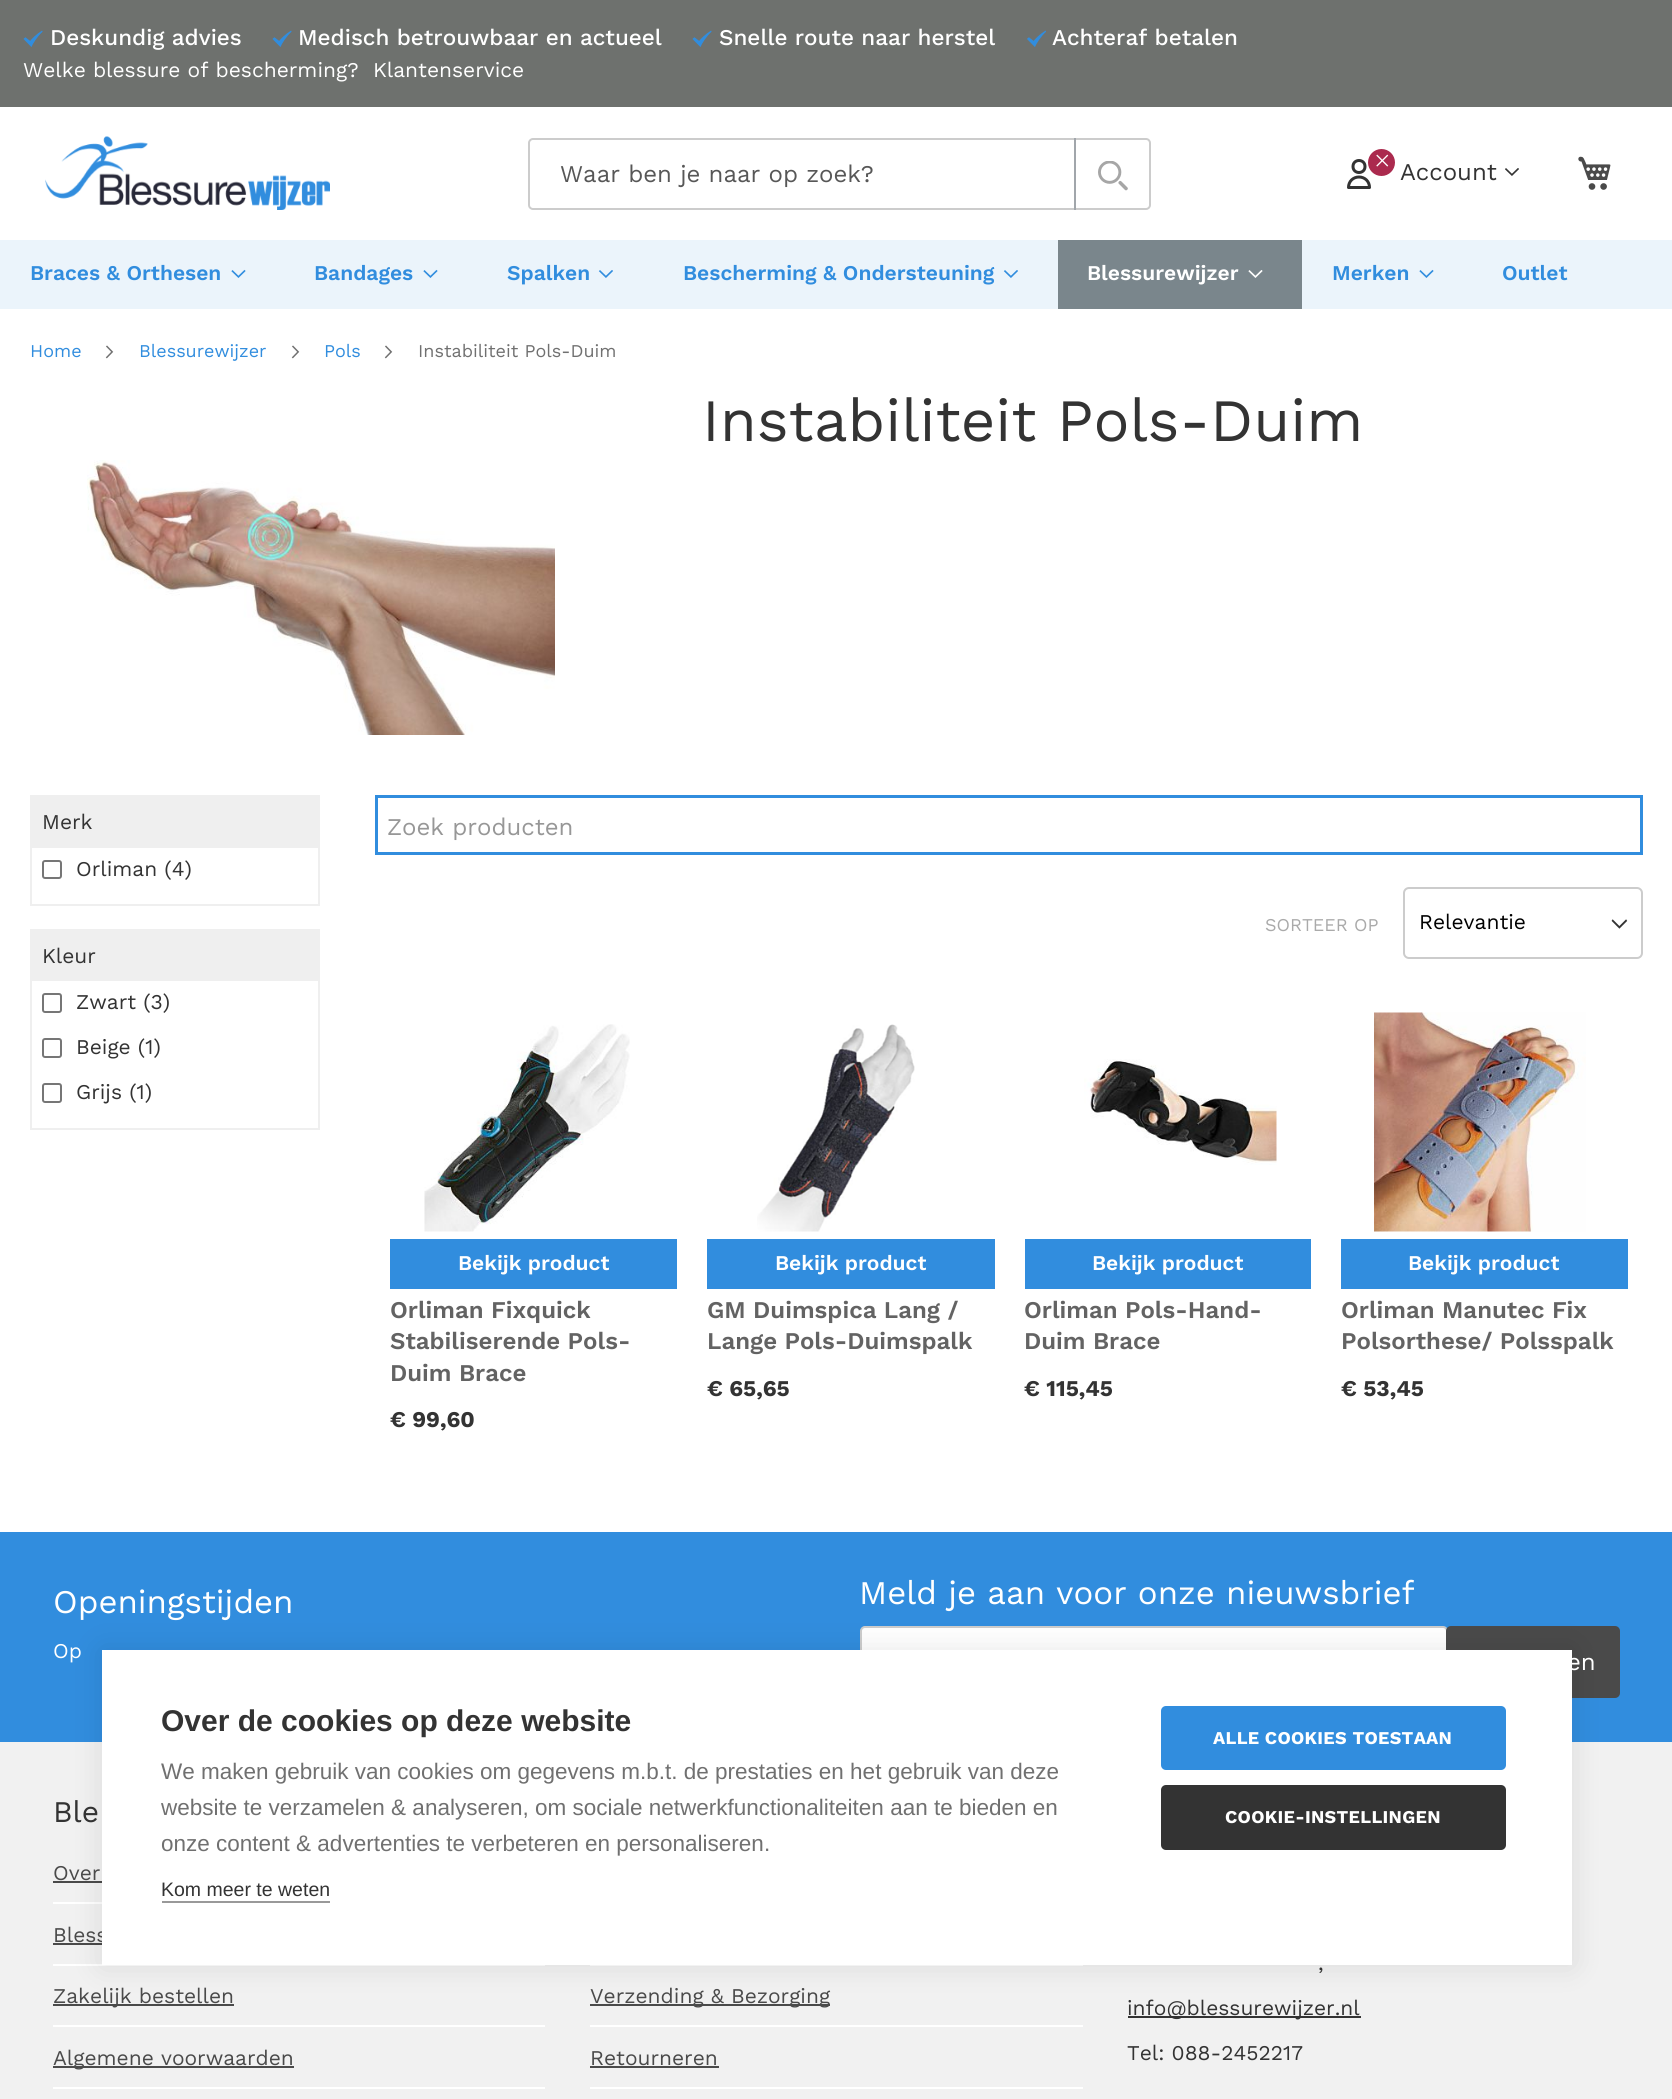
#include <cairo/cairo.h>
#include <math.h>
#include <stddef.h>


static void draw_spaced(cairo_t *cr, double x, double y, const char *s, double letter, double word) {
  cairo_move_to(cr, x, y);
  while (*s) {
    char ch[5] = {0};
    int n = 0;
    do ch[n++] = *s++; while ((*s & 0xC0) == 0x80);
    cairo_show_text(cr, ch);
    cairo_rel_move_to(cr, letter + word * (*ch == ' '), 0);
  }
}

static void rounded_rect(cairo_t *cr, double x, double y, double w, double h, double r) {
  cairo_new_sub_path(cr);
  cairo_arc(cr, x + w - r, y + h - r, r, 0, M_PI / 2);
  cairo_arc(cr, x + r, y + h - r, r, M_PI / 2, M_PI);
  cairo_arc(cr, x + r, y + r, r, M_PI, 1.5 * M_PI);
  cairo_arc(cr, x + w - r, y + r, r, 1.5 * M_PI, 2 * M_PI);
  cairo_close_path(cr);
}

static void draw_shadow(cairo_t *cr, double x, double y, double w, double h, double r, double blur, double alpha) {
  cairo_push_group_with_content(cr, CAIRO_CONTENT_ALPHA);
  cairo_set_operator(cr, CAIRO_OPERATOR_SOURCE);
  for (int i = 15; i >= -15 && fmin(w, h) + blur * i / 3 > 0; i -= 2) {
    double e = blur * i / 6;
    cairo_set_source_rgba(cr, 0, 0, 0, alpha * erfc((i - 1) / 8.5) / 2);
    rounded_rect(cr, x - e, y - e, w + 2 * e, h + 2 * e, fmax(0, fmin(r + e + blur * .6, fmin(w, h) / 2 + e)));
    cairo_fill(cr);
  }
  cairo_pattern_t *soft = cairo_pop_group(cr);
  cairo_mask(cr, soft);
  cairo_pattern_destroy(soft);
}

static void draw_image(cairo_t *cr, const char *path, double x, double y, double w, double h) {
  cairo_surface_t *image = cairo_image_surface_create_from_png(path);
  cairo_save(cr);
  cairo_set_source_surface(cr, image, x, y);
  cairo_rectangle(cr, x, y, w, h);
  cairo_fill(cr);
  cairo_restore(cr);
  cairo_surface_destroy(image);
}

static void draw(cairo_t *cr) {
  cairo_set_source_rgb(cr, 1, 1, 1);
  cairo_paint(cr);
  cairo_set_source_rgb(cr, 110 / 255.0, 113 / 255.0, 110 / 255.0);
  cairo_rectangle(cr, 0, 0, 1672, 107);
  cairo_fill(cr);
  draw_image(cr, "images/1.png", 23, 30, 20, 17);
  draw_image(cr, "images/1.png", 272, 30, 20, 17);
  draw_image(cr, "images/1.png", 692, 30, 20, 17);
  draw_image(cr, "images/2.png", 1027, 30, 19, 17);
  draw_image(cr, "images/3.png", 45, 136, 285, 74);
  rounded_rect(cr, 529, 139, 621, 70, 4);
  cairo_set_source_rgb(cr, 204 / 255.0, 204 / 255.0, 204 / 255.0);
  cairo_stroke(cr);
  cairo_set_source_rgb(cr, 161 / 255.0, 166 / 255.0, 171 / 255.0);
  cairo_rectangle(cr, 1074, 138, 2, 72);
  cairo_fill(cr);
  draw_image(cr, "images/4.png", 1098, 161, 30, 30);
  cairo_new_path(cr);
  cairo_move_to(cr, 1365, 166.5);
  cairo_curve_to(cr, 1365, 174.5, 1353, 174.5, 1353, 166.5);
  cairo_curve_to(cr, 1353, 158.5, 1365, 158.5, 1365, 166.5);
  cairo_close_path(cr);
  cairo_move_to(cr, 1359, 177);
  cairo_curve_to(cr, 1353, 177, 1348.5, 181.5, 1348.5, 187.5);
  cairo_line_to(cr, 1369.5, 187.5);
  cairo_curve_to(cr, 1369.5, 181.5, 1365, 177, 1359, 177);
  cairo_close_path(cr);
  cairo_set_source_rgb(cr, 51 / 255.0, 51 / 255.0, 51 / 255.0);
  cairo_set_line_width(cr, 3);
  cairo_set_line_cap(cr, CAIRO_LINE_CAP_ROUND);
  cairo_set_line_join(cr, CAIRO_LINE_JOIN_ROUND);
  cairo_stroke(cr);
  cairo_set_source_rgb(cr, 171 / 255.0, 42 / 255.0, 78 / 255.0);
  cairo_arc(cr, 1381.5, 162.5, 13.5, 0, 2 * M_PI);
  cairo_fill(cr);
  draw_image(cr, "images/5.png", 1376, 154, 13, 13);
  draw_image(cr, "images/6.png", 1505, 168, 14, 8);
  draw_image(cr, "images/7.png", 1578, 156, 33, 34);
  cairo_set_source_rgb(cr, 235 / 255.0, 244 / 255.0, 251 / 255.0);
  cairo_rectangle(cr, 0, 240, 1672, 69);
  cairo_fill(cr);
  draw_image(cr, "images/8.png", 231, 269, 15, 9);
  draw_image(cr, "images/8.png", 423, 269, 15, 9);
  draw_image(cr, "images/9.png", 598, 270, 15, 8);
  draw_image(cr, "images/9.png", 1003, 270, 15, 8);
  cairo_set_source_rgb(cr, 122 / 255.0, 134 / 255.0, 140 / 255.0);
  cairo_rectangle(cr, 1058, 240, 244, 69);
  cairo_fill(cr);
  draw_image(cr, "images/10.png", 1248, 270, 15, 8);
  draw_image(cr, "images/8.png", 1419, 269, 15, 9);
  draw_image(cr, "images/11.png", 105, 345, 9, 14);
  draw_image(cr, "images/11.png", 291, 345, 9, 14);
  draw_image(cr, "images/11.png", 384, 345, 9, 14);
  draw_image(cr, "images/12.png", 87, 460, 468, 275);
  cairo_rectangle(cr, 31, 796, 288, 109);
  cairo_set_source_rgb(cr, 239 / 255.0, 239 / 255.0, 239 / 255.0);
  cairo_set_line_width(cr, 2);
  cairo_set_line_cap(cr, CAIRO_LINE_CAP_BUTT);
  cairo_set_line_join(cr, CAIRO_LINE_JOIN_MITER);
  cairo_stroke(cr);
  cairo_rectangle(cr, 32, 797, 286, 51);
  cairo_fill(cr);
  rounded_rect(cr, 43, 861, 18, 17, 2);
  cairo_set_source_rgb(cr, 118 / 255.0, 118 / 255.0, 118 / 255.0);
  cairo_stroke(cr);
  cairo_rectangle(cr, 31, 930, 288, 199);
  cairo_set_source_rgb(cr, 239 / 255.0, 239 / 255.0, 239 / 255.0);
  cairo_stroke(cr);
  cairo_rectangle(cr, 32, 931, 286, 50);
  cairo_fill(cr);
  rounded_rect(cr, 43, 994, 18, 18, 2);
  cairo_set_source_rgb(cr, 118 / 255.0, 118 / 255.0, 118 / 255.0);
  cairo_stroke(cr);
  rounded_rect(cr, 43, 1039, 18, 18, 2);
  cairo_stroke(cr);
  rounded_rect(cr, 43, 1084, 18, 18, 2);
  cairo_stroke(cr);
  cairo_rectangle(cr, 376.5, 796.5, 1265, 57);
  cairo_set_source_rgb(cr, 49 / 255.0, 141 / 255.0, 222 / 255.0);
  cairo_set_line_width(cr, 3);
  cairo_stroke(cr);
  draw_image(cr, "images/13.png", 1611, 919, 17, 10);
  rounded_rect(cr, 1404, 888, 238, 70, 5);
  cairo_set_source_rgb(cr, 204 / 255.0, 204 / 255.0, 204 / 255.0);
  cairo_set_line_width(cr, 2);
  cairo_stroke(cr);
  draw_image(cr, "images/14.png", 424, 1024, 206, 208);
  cairo_set_source_rgb(cr, 49 / 255.0, 141 / 255.0, 222 / 255.0);
  cairo_rectangle(cr, 390, 1239, 287, 50);
  cairo_fill(cr);
  draw_image(cr, "images/15.png", 757, 1024, 158, 208);
  cairo_rectangle(cr, 707, 1239, 288, 50);
  cairo_fill(cr);
  draw_image(cr, "images/16.png", 1084, 1059, 193, 106);
  cairo_rectangle(cr, 1025, 1239, 286, 50);
  cairo_fill(cr);
  draw_image(cr, "images/17.png", 1374, 1012, 212, 220);
  cairo_rectangle(cr, 1341, 1239, 287, 50);
  cairo_fill(cr);
  cairo_rectangle(cr, 0, 1532, 1672, 210);
  cairo_fill(cr);
  cairo_set_source_rgb(cr, 1, 1, 1);
  rounded_rect(cr, 861, 1627, 586, 70, 4);
  cairo_fill_preserve(cr);
  cairo_set_source_rgb(cr, 204 / 255.0, 204 / 255.0, 204 / 255.0);
  cairo_stroke(cr);
  cairo_set_source_rgb(cr, 74 / 255.0, 74 / 255.0, 74 / 255.0);
  rounded_rect(cr, 1446, 1626, 174, 72, 5);
  cairo_fill(cr);
  cairo_set_source_rgb(cr, 241 / 255.0, 241 / 255.0, 241 / 255.0);
  cairo_rectangle(cr, 0, 1742, 1672, 357);
  cairo_fill(cr);
  cairo_set_source_rgb(cr, 1, 1, 1);
  cairo_rectangle(cr, 53, 1902, 49, 2);
  cairo_fill(cr);
  cairo_set_source_rgb(cr, 74 / 255.0, 74 / 255.0, 74 / 255.0);
  cairo_rectangle(cr, 53, 1881, 49, 2);
  cairo_fill(cr);
  cairo_set_source_rgb(cr, 1, 1, 1);
  cairo_rectangle(cr, 53, 1964, 492, 2);
  cairo_fill(cr);
  cairo_set_source_rgb(cr, 74 / 255.0, 74 / 255.0, 74 / 255.0);
  cairo_rectangle(cr, 53, 1943, 49, 2);
  cairo_fill(cr);
  cairo_set_source_rgb(cr, 1, 1, 1);
  cairo_rectangle(cr, 53, 2025, 492, 2);
  cairo_fill(cr);
  cairo_set_source_rgb(cr, 74 / 255.0, 74 / 255.0, 74 / 255.0);
  cairo_rectangle(cr, 53, 2004, 181, 2);
  cairo_fill(cr);
  cairo_set_source_rgb(cr, 1, 1, 1);
  cairo_rectangle(cr, 53, 2087, 492, 2);
  cairo_fill(cr);
  cairo_set_source_rgb(cr, 74 / 255.0, 74 / 255.0, 74 / 255.0);
  cairo_rectangle(cr, 53, 2066, 241, 2);
  cairo_fill(cr);
  cairo_set_source_rgb(cr, 1, 1, 1);
  cairo_rectangle(cr, 590, 1965, 493, 1);
  cairo_fill(cr);
  cairo_rectangle(cr, 590, 2025, 493, 2);
  cairo_fill(cr);
  cairo_set_source_rgb(cr, 74 / 255.0, 74 / 255.0, 74 / 255.0);
  cairo_rectangle(cr, 590, 2004, 240, 2);
  cairo_fill(cr);
  cairo_set_source_rgb(cr, 1, 1, 1);
  cairo_rectangle(cr, 590, 2087, 493, 2);
  cairo_fill(cr);
  cairo_set_source_rgb(cr, 74 / 255.0, 74 / 255.0, 74 / 255.0);
  cairo_rectangle(cr, 590, 2066, 129, 2);
  cairo_fill(cr);
  cairo_set_source_rgb(cr, 51 / 255.0, 51 / 255.0, 51 / 255.0);
  cairo_rectangle(cr, 1128, 2016, 233, 2);
  cairo_fill(cr);
  cairo_set_source_rgb(cr, 0, 0, 0);
  draw_shadow(cr, 102, 1650, 1470, 315, 0, 15, 0.1);
  cairo_select_font_face(cr, "Work Sans Medium", CAIRO_FONT_SLANT_NORMAL, CAIRO_FONT_WEIGHT_NORMAL);
  cairo_set_font_size(cr, 22.5);
  cairo_set_source_rgb(cr, 1, 1, 1);
  cairo_move_to(cr, 50, 45);
  cairo_show_text(cr, "Deskundig advies");
  cairo_move_to(cr, 298, 45);
  cairo_show_text(cr, "Medisch betrouwbaar en actueel");
  cairo_move_to(cr, 719, 45);
  cairo_show_text(cr, "Snelle route naar herstel");
  cairo_move_to(cr, 1052, 45);
  cairo_show_text(cr, "Achteraf betalen");
  cairo_select_font_face(cr, "Work Sans", CAIRO_FONT_SLANT_NORMAL, CAIRO_FONT_WEIGHT_NORMAL);
  cairo_set_font_size(cr, 21);
  cairo_move_to(cr, 23, 77);
  cairo_show_text(cr, "Welke blessure of bescherming?");
  cairo_move_to(cr, 373, 77);
  cairo_show_text(cr, "Klantenservice");
  cairo_set_font_size(cr, 24);
  cairo_set_source_rgb(cr, 87 / 255.0, 87 / 255.0, 87 / 255.0);
  cairo_move_to(cr, 560, 182);
  cairo_show_text(cr, "Waar ben je naar op zoek?");
  cairo_set_source_rgb(cr, 51 / 255.0, 51 / 255.0, 51 / 255.0);
  cairo_move_to(cr, 1400, 180);
  cairo_show_text(cr, "Account");
  cairo_select_font_face(cr, "Work Sans SemiBold", CAIRO_FONT_SLANT_NORMAL, CAIRO_FONT_WEIGHT_NORMAL);
  cairo_set_font_size(cr, 21);
  cairo_set_source_rgb(cr, 49 / 255.0, 141 / 255.0, 222 / 255.0);
  cairo_move_to(cr, 30, 280);
  cairo_show_text(cr, "Braces & Orthesen");
  cairo_move_to(cr, 314, 280);
  cairo_show_text(cr, "Bandages");
  cairo_move_to(cr, 507, 280);
  cairo_show_text(cr, "Spalken");
  cairo_move_to(cr, 683, 280);
  cairo_show_text(cr, "Bescherming & Ondersteuning");
  cairo_set_source_rgb(cr, 1, 1, 1);
  cairo_move_to(cr, 1087, 280);
  cairo_show_text(cr, "Blessurewijzer");
  cairo_set_source_rgb(cr, 49 / 255.0, 141 / 255.0, 222 / 255.0);
  cairo_move_to(cr, 1332, 280);
  cairo_show_text(cr, "Merken");
  cairo_move_to(cr, 1502, 280);
  cairo_show_text(cr, "Outlet");
  cairo_select_font_face(cr, "Work Sans", CAIRO_FONT_SLANT_NORMAL, CAIRO_FONT_WEIGHT_NORMAL);
  cairo_set_font_size(cr, 18);
  cairo_move_to(cr, 30, 357);
  cairo_show_text(cr, "Home");
  cairo_move_to(cr, 139, 357);
  cairo_show_text(cr, "Blessurewijzer");
  cairo_move_to(cr, 324, 357);
  cairo_show_text(cr, "Pols");
  cairo_set_source_rgb(cr, 112 / 255.0, 112 / 255.0, 112 / 255.0);
  cairo_move_to(cr, 418, 357);
  cairo_show_text(cr, "Instabiliteit Pols-Duim");
  cairo_set_font_size(cr, 60);
  cairo_set_source_rgb(cr, 51 / 255.0, 51 / 255.0, 51 / 255.0);
  cairo_move_to(cr, 702, 441);
  cairo_show_text(cr, "Instabiliteit Pols-Duim");
  cairo_set_font_size(cr, 21);
  cairo_move_to(cr, 42, 829);
  cairo_show_text(cr, "Merk");
  cairo_move_to(cr, 76, 876);
  cairo_show_text(cr, "Orliman (4)");
  cairo_move_to(cr, 42, 963);
  cairo_show_text(cr, "Kleur");
  cairo_move_to(cr, 76, 1009);
  cairo_show_text(cr, "Zwart (3)");
  cairo_move_to(cr, 76, 1054);
  cairo_show_text(cr, "Beige (1)");
  cairo_move_to(cr, 76, 1099);
  cairo_show_text(cr, "Grijs (1)");
  cairo_set_font_size(cr, 24);
  cairo_set_source_rgb(cr, 151 / 255.0, 151 / 255.0, 151 / 255.0);
  cairo_move_to(cr, 387, 835);
  cairo_show_text(cr, "Zoek producten");
  cairo_set_font_size(cr, 18);
  cairo_set_source_rgb(cr, 170 / 255.0, 170 / 255.0, 170 / 255.0);
  cairo_move_to(cr, 1265, 931);
  cairo_show_text(cr, "SORTEER OP");
  cairo_set_font_size(cr, 21);
  cairo_set_source_rgb(cr, 0, 0, 0);
  cairo_move_to(cr, 1419, 929);
  cairo_show_text(cr, "Relevantie");
  cairo_select_font_face(cr, "Work Sans SemiBold", CAIRO_FONT_SLANT_NORMAL, CAIRO_FONT_WEIGHT_NORMAL);
  cairo_set_source_rgb(cr, 1, 1, 1);
  cairo_move_to(cr, 458, 1270);
  cairo_show_text(cr, "Bekijk product");
  cairo_set_font_size(cr, 24);
  cairo_set_source_rgb(cr, 99 / 255.0, 99 / 255.0, 99 / 255.0);
  cairo_move_to(cr, 390, 1318);
  cairo_show_text(cr, "Orliman Fixquick");
  cairo_move_to(cr, 390, 1349);
  cairo_show_text(cr, "Stabiliserende Pols-");
  cairo_move_to(cr, 390, 1381);
  cairo_show_text(cr, "Duim Brace");
  cairo_select_font_face(cr, "Work Sans", CAIRO_FONT_SLANT_NORMAL, CAIRO_FONT_WEIGHT_BOLD);
  cairo_set_font_size(cr, 22.5);
  cairo_set_source_rgb(cr, 51 / 255.0, 51 / 255.0, 51 / 255.0);
  cairo_move_to(cr, 390, 1427);
  cairo_show_text(cr, "€ 99,60");
  cairo_select_font_face(cr, "Work Sans SemiBold", CAIRO_FONT_SLANT_NORMAL, CAIRO_FONT_WEIGHT_NORMAL);
  cairo_set_font_size(cr, 21);
  cairo_set_source_rgb(cr, 1, 1, 1);
  cairo_move_to(cr, 775, 1270);
  cairo_show_text(cr, "Bekijk product");
  cairo_set_font_size(cr, 24);
  cairo_set_source_rgb(cr, 99 / 255.0, 99 / 255.0, 99 / 255.0);
  cairo_move_to(cr, 707, 1318);
  cairo_show_text(cr, "GM Duimspica Lang /");
  cairo_move_to(cr, 707, 1349);
  cairo_show_text(cr, "Lange Pols-Duimspalk");
  cairo_select_font_face(cr, "Work Sans", CAIRO_FONT_SLANT_NORMAL, CAIRO_FONT_WEIGHT_BOLD);
  cairo_set_font_size(cr, 22.5);
  cairo_set_source_rgb(cr, 51 / 255.0, 51 / 255.0, 51 / 255.0);
  cairo_move_to(cr, 707, 1396);
  cairo_show_text(cr, "€ 65,65");
  cairo_select_font_face(cr, "Work Sans SemiBold", CAIRO_FONT_SLANT_NORMAL, CAIRO_FONT_WEIGHT_NORMAL);
  cairo_set_font_size(cr, 21);
  cairo_set_source_rgb(cr, 1, 1, 1);
  cairo_move_to(cr, 1092, 1270);
  cairo_show_text(cr, "Bekijk product");
  cairo_set_font_size(cr, 24);
  cairo_set_source_rgb(cr, 99 / 255.0, 99 / 255.0, 99 / 255.0);
  cairo_move_to(cr, 1024, 1318);
  cairo_show_text(cr, "Orliman Pols-Hand-");
  cairo_move_to(cr, 1024, 1349);
  cairo_show_text(cr, "Duim Brace");
  cairo_select_font_face(cr, "Work Sans", CAIRO_FONT_SLANT_NORMAL, CAIRO_FONT_WEIGHT_BOLD);
  cairo_set_font_size(cr, 22.5);
  cairo_set_source_rgb(cr, 51 / 255.0, 51 / 255.0, 51 / 255.0);
  cairo_move_to(cr, 1024, 1396);
  cairo_show_text(cr, "€ 115,45");
  cairo_select_font_face(cr, "Work Sans SemiBold", CAIRO_FONT_SLANT_NORMAL, CAIRO_FONT_WEIGHT_NORMAL);
  cairo_set_font_size(cr, 21);
  cairo_set_source_rgb(cr, 1, 1, 1);
  cairo_move_to(cr, 1408, 1270);
  cairo_show_text(cr, "Bekijk product");
  cairo_set_font_size(cr, 24);
  cairo_set_source_rgb(cr, 99 / 255.0, 99 / 255.0, 99 / 255.0);
  cairo_move_to(cr, 1341, 1318);
  cairo_show_text(cr, "Orliman Manutec Fix");
  cairo_move_to(cr, 1341, 1349);
  cairo_show_text(cr, "Polsorthese/ Polsspalk");
  cairo_select_font_face(cr, "Work Sans", CAIRO_FONT_SLANT_NORMAL, CAIRO_FONT_WEIGHT_BOLD);
  cairo_set_font_size(cr, 22.5);
  cairo_set_source_rgb(cr, 51 / 255.0, 51 / 255.0, 51 / 255.0);
  cairo_move_to(cr, 1341, 1396);
  cairo_show_text(cr, "€ 53,45");
  cairo_select_font_face(cr, "Work Sans", CAIRO_FONT_SLANT_NORMAL, CAIRO_FONT_WEIGHT_NORMAL);
  cairo_set_font_size(cr, 33);
  cairo_set_source_rgb(cr, 1, 1, 1);
  cairo_move_to(cr, 53, 1613);
  cairo_show_text(cr, "Openingstijden");
  cairo_set_font_size(cr, 21);
  cairo_move_to(cr, 53, 1658);
  cairo_show_text(cr, "Op");
  cairo_set_font_size(cr, 33);
  cairo_move_to(cr, 859, 1604);
  cairo_show_text(cr, "Meld je aan voor onze nieuwsbrief");
  cairo_set_font_size(cr, 24);
  cairo_move_to(cr, 1567, 1670);
  cairo_show_text(cr, "en");
  cairo_set_font_size(cr, 30);
  cairo_set_source_rgb(cr, 51 / 255.0, 51 / 255.0, 51 / 255.0);
  cairo_move_to(cr, 53, 1822);
  cairo_show_text(cr, "Ble");
  cairo_set_font_size(cr, 21);
  cairo_set_source_rgb(cr, 74 / 255.0, 74 / 255.0, 74 / 255.0);
  cairo_move_to(cr, 53, 1880);
  cairo_show_text(cr, "Over");
  cairo_move_to(cr, 53, 1942);
  cairo_show_text(cr, "Bless");
  cairo_move_to(cr, 53, 2003);
  cairo_show_text(cr, "Zakelijk bestellen");
  cairo_move_to(cr, 53, 2065);
  cairo_show_text(cr, "Algemene voorwaarden");
  cairo_move_to(cr, 590, 2003);
  cairo_show_text(cr, "Verzending & Bezorging");
  cairo_move_to(cr, 590, 2065);
  cairo_show_text(cr, "Retourneren");
  cairo_set_source_rgb(cr, 51 / 255.0, 51 / 255.0, 51 / 255.0);
  cairo_move_to(cr, 1318, 1970);
  cairo_show_text(cr, ",");
  cairo_move_to(cr, 1127, 2015);
  cairo_show_text(cr, "info@blessurewijzer.nl");
  cairo_move_to(cr, 1127, 2060);
  cairo_show_text(cr, "Tel: 088-2452217");
  cairo_set_source_rgb(cr, 1, 1, 1);
  cairo_rectangle(cr, 102, 1650, 1470, 315);
  cairo_fill(cr);
  cairo_select_font_face(cr, "Liberation Sans", CAIRO_FONT_SLANT_NORMAL, CAIRO_FONT_WEIGHT_BOLD);
  cairo_set_font_size(cr, 30);
  cairo_set_source_rgb(cr, 51 / 255.0, 51 / 255.0, 51 / 255.0);
  cairo_move_to(cr, 161, 1731);
  cairo_show_text(cr, "Over de cookies op deze website");
  cairo_select_font_face(cr, "Liberation Sans", CAIRO_FONT_SLANT_NORMAL, CAIRO_FONT_WEIGHT_NORMAL);
  cairo_set_font_size(cr, 22.5);
  cairo_set_source_rgb(cr, 112 / 255.0, 112 / 255.0, 112 / 255.0);
  cairo_move_to(cr, 161, 1779);
  cairo_show_text(cr, "We maken gebruik van cookies om gegevens m.b.t. de prestaties en het gebruik van deze");
  cairo_move_to(cr, 161, 1815);
  cairo_show_text(cr, "website te verzamelen & analyseren, om sociale netwerkfunctionaliteiten aan te bieden en");
  cairo_move_to(cr, 161, 1851);
  cairo_show_text(cr, "onze content & advertenties te verbeteren en personaliseren.");
  cairo_set_font_size(cr, 19.5);
  cairo_set_source_rgb(cr, 51 / 255.0, 51 / 255.0, 51 / 255.0);
  cairo_move_to(cr, 161, 1896);
  cairo_show_text(cr, "Kom meer te weten");
  cairo_set_source_rgb(cr, 153 / 255.0, 153 / 255.0, 153 / 255.0);
  cairo_rectangle(cr, 162, 1901, 168, 2);
  cairo_fill(cr);
  cairo_set_source_rgb(cr, 49 / 255.0, 141 / 255.0, 222 / 255.0);
  rounded_rect(cr, 1161, 1706, 345, 64, 5);
  cairo_fill(cr);
  cairo_select_font_face(cr, "Work Sans", CAIRO_FONT_SLANT_NORMAL, CAIRO_FONT_WEIGHT_BOLD);
  cairo_set_font_size(cr, 18);
  cairo_set_source_rgb(cr, 1, 1, 1);
  draw_spaced(cr, 1213, 1744, "ALLE COOKIES TOESTAAN", 0.3, 0);
  cairo_set_source_rgb(cr, 51 / 255.0, 51 / 255.0, 51 / 255.0);
  rounded_rect(cr, 1161, 1785, 345, 65, 5);
  cairo_fill(cr);
  cairo_set_source_rgb(cr, 1, 1, 1);
  draw_spaced(cr, 1225, 1823, "COOKIE-INSTELLINGEN", 0.3, 0);
}

int main(void) {
  cairo_surface_t *surface = cairo_image_surface_create(CAIRO_FORMAT_RGB24, 1672, 2099);
  cairo_t *cr = cairo_create(surface);
  cairo_font_options_t *options = cairo_font_options_create();
  cairo_font_options_set_hint_metrics(options, CAIRO_HINT_METRICS_OFF);
  cairo_font_options_set_hint_style(options, CAIRO_HINT_STYLE_NONE);
  cairo_set_font_options(cr, options);
  cairo_set_miter_limit(cr, 4);
  draw(cr);
  cairo_surface_write_to_png(surface, "out.png");
  cairo_font_options_destroy(options);
  cairo_destroy(cr);
  cairo_surface_destroy(surface);
  return 0;
}
